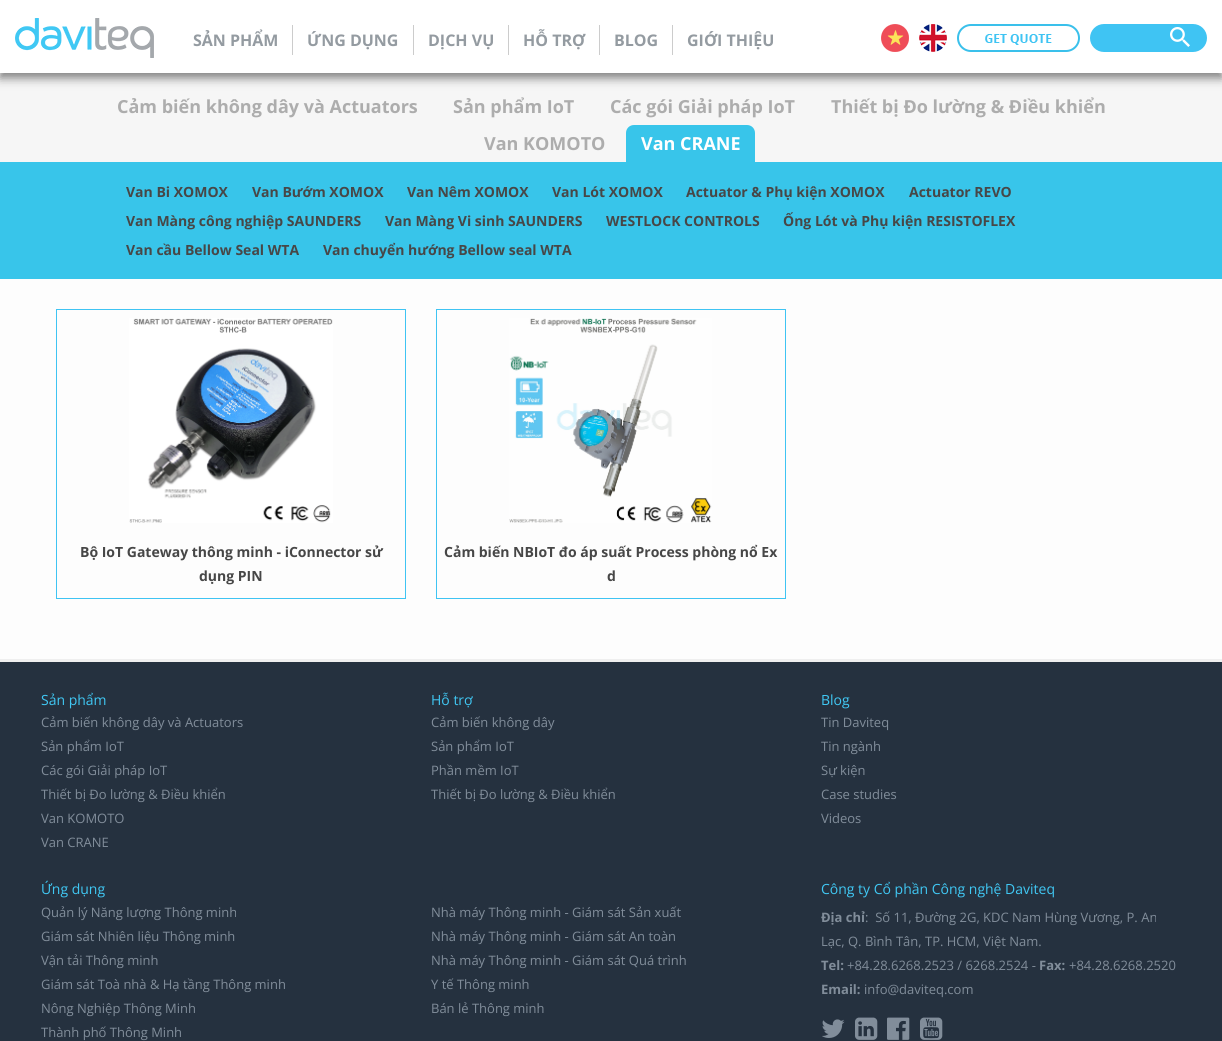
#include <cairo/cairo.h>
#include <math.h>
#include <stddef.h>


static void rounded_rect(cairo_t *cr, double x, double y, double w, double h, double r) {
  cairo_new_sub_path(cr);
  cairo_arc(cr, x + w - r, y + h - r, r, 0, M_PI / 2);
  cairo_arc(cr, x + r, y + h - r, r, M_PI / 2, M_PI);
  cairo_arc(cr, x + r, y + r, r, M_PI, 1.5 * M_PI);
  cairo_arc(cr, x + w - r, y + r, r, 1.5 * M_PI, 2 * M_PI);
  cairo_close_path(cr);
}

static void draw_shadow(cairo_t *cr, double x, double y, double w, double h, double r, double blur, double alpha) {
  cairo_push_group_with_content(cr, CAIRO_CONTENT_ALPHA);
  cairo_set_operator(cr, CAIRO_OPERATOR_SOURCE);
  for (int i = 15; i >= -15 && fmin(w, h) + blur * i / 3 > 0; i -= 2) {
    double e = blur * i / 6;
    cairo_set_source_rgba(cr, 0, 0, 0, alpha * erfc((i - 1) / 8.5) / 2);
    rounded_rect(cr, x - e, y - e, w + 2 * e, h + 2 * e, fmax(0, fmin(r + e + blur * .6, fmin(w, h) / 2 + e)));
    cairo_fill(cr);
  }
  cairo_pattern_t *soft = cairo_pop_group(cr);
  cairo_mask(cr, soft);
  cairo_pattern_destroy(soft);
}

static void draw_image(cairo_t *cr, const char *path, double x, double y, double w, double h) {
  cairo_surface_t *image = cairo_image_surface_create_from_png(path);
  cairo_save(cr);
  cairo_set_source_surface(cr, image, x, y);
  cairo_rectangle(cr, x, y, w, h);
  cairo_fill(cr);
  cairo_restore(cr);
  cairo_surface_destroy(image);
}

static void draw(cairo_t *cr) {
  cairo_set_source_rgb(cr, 253 / 255.0, 253 / 255.0, 253 / 255.0);
  cairo_paint(cr);
  cairo_set_source_rgb(cr, 246 / 255.0, 246 / 255.0, 246 / 255.0);
  cairo_rectangle(cr, 0, 74, 1222, 88);
  cairo_fill(cr);
  cairo_set_source_rgb(cr, 126 / 255.0, 126 / 255.0, 126 / 255.0);
  draw_shadow(cr, 0, 5, 1222, 73, 0, 5, 1);
  cairo_set_source_rgb(cr, 1, 1, 1);
  cairo_rectangle(cr, 0, 0, 1222, 73);
  cairo_fill(cr);
  draw_image(cr, "images/1.png", 15, 18, 139, 40);
  cairo_set_source_rgb(cr, 204 / 255.0, 204 / 255.0, 204 / 255.0);
  cairo_rectangle(cr, 292, 25, 1, 30);
  cairo_fill(cr);
  cairo_rectangle(cr, 413, 25, 1, 30);
  cairo_fill(cr);
  cairo_rectangle(cr, 508, 25, 1, 30);
  cairo_fill(cr);
  cairo_rectangle(cr, 599, 25, 1, 30);
  cairo_fill(cr);
  cairo_rectangle(cr, 672, 25, 1, 30);
  cairo_fill(cr);
  draw_image(cr, "images/2.png", 881, 24, 28, 28);
  draw_image(cr, "images/3.png", 919, 24, 28, 28);
  draw_image(cr, "images/4.png", 957, 24, 123, 28);
  cairo_set_source_rgb(cr, 63 / 255.0, 196 / 255.0, 243 / 255.0);
  rounded_rect(cr, 1090, 24, 117, 28, 14);
  cairo_fill(cr);
  draw_image(cr, "images/5.png", 1170, 27, 20, 20);
  cairo_set_source_rgb(cr, 56 / 255.0, 197 / 255.0, 234 / 255.0);
  cairo_new_path(cr);
  cairo_move_to(cr, 634, 125);
  cairo_line_to(cr, 747, 125);
  cairo_curve_to(cr, 751.5, 125, 755, 128.5, 755, 133);
  cairo_line_to(cr, 755, 162);
  cairo_line_to(cr, 626, 162);
  cairo_line_to(cr, 626, 133);
  cairo_curve_to(cr, 626, 128.5, 629.5, 125, 634, 125);
  cairo_close_path(cr);
  cairo_fill(cr);
  cairo_rectangle(cr, 0, 162, 1222, 117);
  cairo_fill(cr);
  cairo_rectangle(cr, 56.5, 309.5, 349, 289);
  cairo_set_source_rgb(cr, 63 / 255.0, 196 / 255.0, 243 / 255.0);
  cairo_set_line_width(cr, 1);
  cairo_stroke(cr);
  draw_image(cr, "images/6.png", 129, 318, 204, 205);
  cairo_rectangle(cr, 436.5, 309.5, 349, 289);
  cairo_stroke(cr);
  draw_image(cr, "images/7.png", 509, 318, 203, 205);
  cairo_set_source_rgb(cr, 37 / 255.0, 49 / 255.0, 63 / 255.0);
  cairo_rectangle(cr, 0, 662, 1222, 379);
  cairo_fill(cr);
  cairo_set_source_rgb(cr, 239 / 255.0, 239 / 255.0, 239 / 255.0);
  cairo_rectangle(cr, 0, 659, 1222, 3);
  cairo_fill(cr);
  draw_image(cr, "images/8.png", 822, 1019, 23, 19);
  draw_image(cr, "images/9.png", 855, 1017, 23, 23);
  draw_image(cr, "images/10.png", 887, 1017, 23, 23);
  draw_image(cr, "images/11.png", 920, 1017, 23, 23);
  cairo_select_font_face(cr, "Open Sans", CAIRO_FONT_SLANT_NORMAL, CAIRO_FONT_WEIGHT_BOLD);
  cairo_set_font_size(cr, 16);
  cairo_set_source_rgb(cr, 148 / 255.0, 155 / 255.0, 161 / 255.0);
  cairo_move_to(cr, 193, 46);
  cairo_show_text(cr, "SẢN PHẨM");
  cairo_move_to(cr, 307, 46);
  cairo_show_text(cr, "ỨNG DỤNG");
  cairo_move_to(cr, 428, 46);
  cairo_show_text(cr, "DỊCH VỤ");
  cairo_move_to(cr, 523, 46);
  cairo_show_text(cr, "HỖ TRỢ");
  cairo_move_to(cr, 614, 46);
  cairo_show_text(cr, "BLOG");
  cairo_move_to(cr, 687, 46);
  cairo_show_text(cr, "GIỚI THIỆU");
  cairo_set_font_size(cr, 18);
  cairo_set_source_rgb(cr, 173 / 255.0, 173 / 255.0, 173 / 255.0);
  cairo_move_to(cr, 117, 113);
  cairo_show_text(cr, "Cảm biến không dây và Actuators");
  cairo_move_to(cr, 453, 113);
  cairo_show_text(cr, "Sản phẩm IoT");
  cairo_move_to(cr, 610, 113);
  cairo_show_text(cr, "Các gói Giải pháp IoT");
  cairo_move_to(cr, 831, 113);
  cairo_show_text(cr, "Thiết bị Đo lường & Điều khiển");
  cairo_move_to(cr, 484, 150);
  cairo_show_text(cr, "Van KOMOTO");
  cairo_set_source_rgb(cr, 1, 1, 1);
  cairo_move_to(cr, 641, 150);
  cairo_show_text(cr, "Van CRANE");
  cairo_set_font_size(cr, 14);
  cairo_set_source_rgb(cr, 71 / 255.0, 71 / 255.0, 71 / 255.0);
  cairo_move_to(cr, 126, 197);
  cairo_show_text(cr, "Van Bi XOMOX");
  cairo_move_to(cr, 252, 197);
  cairo_show_text(cr, "Van Bướm XOMOX");
  cairo_move_to(cr, 407, 197);
  cairo_show_text(cr, "Van Nêm XOMOX");
  cairo_move_to(cr, 552, 197);
  cairo_show_text(cr, "Van Lót XOMOX");
  cairo_move_to(cr, 686, 197);
  cairo_show_text(cr, "Actuator & Phụ kiện XOMOX");
  cairo_move_to(cr, 909, 197);
  cairo_show_text(cr, "Actuator REVO");
  cairo_move_to(cr, 126, 226);
  cairo_show_text(cr, "Van Màng công nghiệp SAUNDERS");
  cairo_move_to(cr, 385, 226);
  cairo_show_text(cr, "Van Màng Vi sinh SAUNDERS");
  cairo_move_to(cr, 606, 226);
  cairo_show_text(cr, "WESTLOCK CONTROLS");
  cairo_move_to(cr, 783, 226);
  cairo_show_text(cr, "Ống Lót và Phụ kiện RESISTOFLEX");
  cairo_move_to(cr, 126, 255);
  cairo_show_text(cr, "Van cầu Bellow Seal WTA");
  cairo_move_to(cr, 323, 255);
  cairo_show_text(cr, "Van chuyển hướng Bellow seal WTA");
  cairo_move_to(cr, 80, 557);
  cairo_show_text(cr, "Bộ IoT Gateway thông minh - iConnector sử");
  cairo_move_to(cr, 199, 581);
  cairo_show_text(cr, "dụng PIN");
  cairo_move_to(cr, 444, 557);
  cairo_show_text(cr, "Cảm biến NBIoT đo áp suất Process phòng nổ Ex");
  cairo_move_to(cr, 607, 581);
  cairo_show_text(cr, "d");
  cairo_select_font_face(cr, "Open Sans", CAIRO_FONT_SLANT_NORMAL, CAIRO_FONT_WEIGHT_NORMAL);
  cairo_set_source_rgb(cr, 64 / 255.0, 200 / 255.0, 244 / 255.0);
  cairo_move_to(cr, 41, 705);
  cairo_show_text(cr, "Sản phẩm");
  cairo_set_font_size(cr, 13);
  cairo_set_source_rgb(cr, 129 / 255.0, 141 / 255.0, 154 / 255.0);
  cairo_move_to(cr, 41, 727);
  cairo_show_text(cr, "Cảm biến không dây và Actuators");
  cairo_move_to(cr, 41, 751);
  cairo_show_text(cr, "Sản phẩm IoT");
  cairo_move_to(cr, 41, 775);
  cairo_show_text(cr, "Các gói Giải pháp IoT");
  cairo_move_to(cr, 41, 799);
  cairo_show_text(cr, "Thiết bị Đo lường & Điều khiển");
  cairo_move_to(cr, 41, 823);
  cairo_show_text(cr, "Van KOMOTO");
  cairo_move_to(cr, 41, 847);
  cairo_show_text(cr, "Van CRANE");
  cairo_set_font_size(cr, 14);
  cairo_set_source_rgb(cr, 64 / 255.0, 200 / 255.0, 244 / 255.0);
  cairo_move_to(cr, 431, 705);
  cairo_show_text(cr, "Hỗ trợ");
  cairo_set_font_size(cr, 13);
  cairo_set_source_rgb(cr, 129 / 255.0, 141 / 255.0, 154 / 255.0);
  cairo_move_to(cr, 431, 727);
  cairo_show_text(cr, "Cảm biến không dây");
  cairo_move_to(cr, 431, 751);
  cairo_show_text(cr, "Sản phẩm IoT");
  cairo_move_to(cr, 431, 775);
  cairo_show_text(cr, "Phần mềm IoT");
  cairo_move_to(cr, 431, 799);
  cairo_show_text(cr, "Thiết bị Đo lường & Điều khiển");
  cairo_set_font_size(cr, 14);
  cairo_set_source_rgb(cr, 64 / 255.0, 200 / 255.0, 244 / 255.0);
  cairo_move_to(cr, 821, 705);
  cairo_show_text(cr, "Blog");
  cairo_set_font_size(cr, 13);
  cairo_set_source_rgb(cr, 129 / 255.0, 141 / 255.0, 154 / 255.0);
  cairo_move_to(cr, 821, 727);
  cairo_show_text(cr, "Tin Daviteq");
  cairo_move_to(cr, 821, 751);
  cairo_show_text(cr, "Tin ngành");
  cairo_move_to(cr, 821, 775);
  cairo_show_text(cr, "Sự kiện");
  cairo_move_to(cr, 821, 799);
  cairo_show_text(cr, "Case studies");
  cairo_move_to(cr, 821, 823);
  cairo_show_text(cr, "Videos");
  cairo_set_font_size(cr, 14);
  cairo_set_source_rgb(cr, 64 / 255.0, 200 / 255.0, 244 / 255.0);
  cairo_move_to(cr, 41, 894);
  cairo_show_text(cr, "Ứng dụng");
  cairo_set_font_size(cr, 13);
  cairo_set_source_rgb(cr, 129 / 255.0, 141 / 255.0, 154 / 255.0);
  cairo_move_to(cr, 41, 917);
  cairo_show_text(cr, "Quản lý Năng lượng Thông minh");
  cairo_move_to(cr, 41, 941);
  cairo_show_text(cr, "Giám sát Nhiên liệu Thông minh");
  cairo_move_to(cr, 41, 965);
  cairo_show_text(cr, "Vận tải Thông minh");
  cairo_move_to(cr, 41, 989);
  cairo_show_text(cr, "Giám sát Toà nhà & Hạ tầng Thông minh");
  cairo_move_to(cr, 41, 1013);
  cairo_show_text(cr, "Nông Nghiệp Thông Minh");
  cairo_move_to(cr, 41, 1037);
  cairo_show_text(cr, "Thành phố Thông Minh");
  cairo_move_to(cr, 431, 917);
  cairo_show_text(cr, "Nhà máy Thông minh - Giám sát Sản xuất");
  cairo_move_to(cr, 431, 941);
  cairo_show_text(cr, "Nhà máy Thông minh - Giám sát An toàn");
  cairo_move_to(cr, 431, 965);
  cairo_show_text(cr, "Nhà máy Thông minh - Giám sát Quá trình");
  cairo_move_to(cr, 431, 989);
  cairo_show_text(cr, "Y tế Thông minh");
  cairo_move_to(cr, 431, 1013);
  cairo_show_text(cr, "Bán lẻ Thông minh");
  cairo_set_font_size(cr, 14);
  cairo_set_source_rgb(cr, 64 / 255.0, 200 / 255.0, 244 / 255.0);
  cairo_move_to(cr, 821, 894);
  cairo_show_text(cr, "Công ty Cổ phần Công nghệ Daviteq");
  cairo_select_font_face(cr, "Open Sans", CAIRO_FONT_SLANT_NORMAL, CAIRO_FONT_WEIGHT_BOLD);
  cairo_set_font_size(cr, 13);
  cairo_set_source_rgb(cr, 129 / 255.0, 141 / 255.0, 154 / 255.0);
  cairo_move_to(cr, 821, 922);
  cairo_show_text(cr, "Địa chỉ");
  cairo_select_font_face(cr, "Open Sans", CAIRO_FONT_SLANT_NORMAL, CAIRO_FONT_WEIGHT_NORMAL);
  cairo_move_to(cr, 865, 922);
  cairo_show_text(cr, ":  Số 11, Đường 2G, KDC Nam Hùng Vương, P. An");
  cairo_move_to(cr, 821, 946);
  cairo_show_text(cr, "Lạc, Q. Bình Tân, TP. HCM, Việt Nam.");
  cairo_select_font_face(cr, "Open Sans", CAIRO_FONT_SLANT_NORMAL, CAIRO_FONT_WEIGHT_BOLD);
  cairo_move_to(cr, 821, 970);
  cairo_show_text(cr, "Tel:");
  cairo_select_font_face(cr, "Open Sans", CAIRO_FONT_SLANT_NORMAL, CAIRO_FONT_WEIGHT_NORMAL);
  cairo_move_to(cr, 847, 970);
  cairo_show_text(cr, "+84.28.6268.2523 / 6268.2524 -");
  cairo_select_font_face(cr, "Open Sans", CAIRO_FONT_SLANT_NORMAL, CAIRO_FONT_WEIGHT_BOLD);
  cairo_move_to(cr, 1039, 970);
  cairo_show_text(cr, "Fax:");
  cairo_select_font_face(cr, "Open Sans", CAIRO_FONT_SLANT_NORMAL, CAIRO_FONT_WEIGHT_NORMAL);
  cairo_move_to(cr, 1069, 970);
  cairo_show_text(cr, "+84.28.6268.2520");
  cairo_select_font_face(cr, "Open Sans", CAIRO_FONT_SLANT_NORMAL, CAIRO_FONT_WEIGHT_BOLD);
  cairo_move_to(cr, 821, 994);
  cairo_show_text(cr, "Email:");
  cairo_select_font_face(cr, "Open Sans", CAIRO_FONT_SLANT_NORMAL, CAIRO_FONT_WEIGHT_NORMAL);
  cairo_move_to(cr, 864, 994);
  cairo_show_text(cr, "info@daviteq.com");
}

int main(void) {
  cairo_surface_t *surface = cairo_image_surface_create(CAIRO_FORMAT_RGB24, 1222, 1041);
  cairo_t *cr = cairo_create(surface);
  cairo_font_options_t *options = cairo_font_options_create();
  cairo_font_options_set_hint_metrics(options, CAIRO_HINT_METRICS_OFF);
  cairo_font_options_set_hint_style(options, CAIRO_HINT_STYLE_NONE);
  cairo_set_font_options(cr, options);
  cairo_set_miter_limit(cr, 4);
  draw(cr);
  cairo_surface_write_to_png(surface, "out.png");
  cairo_font_options_destroy(options);
  cairo_destroy(cr);
  cairo_surface_destroy(surface);
  return 0;
}
